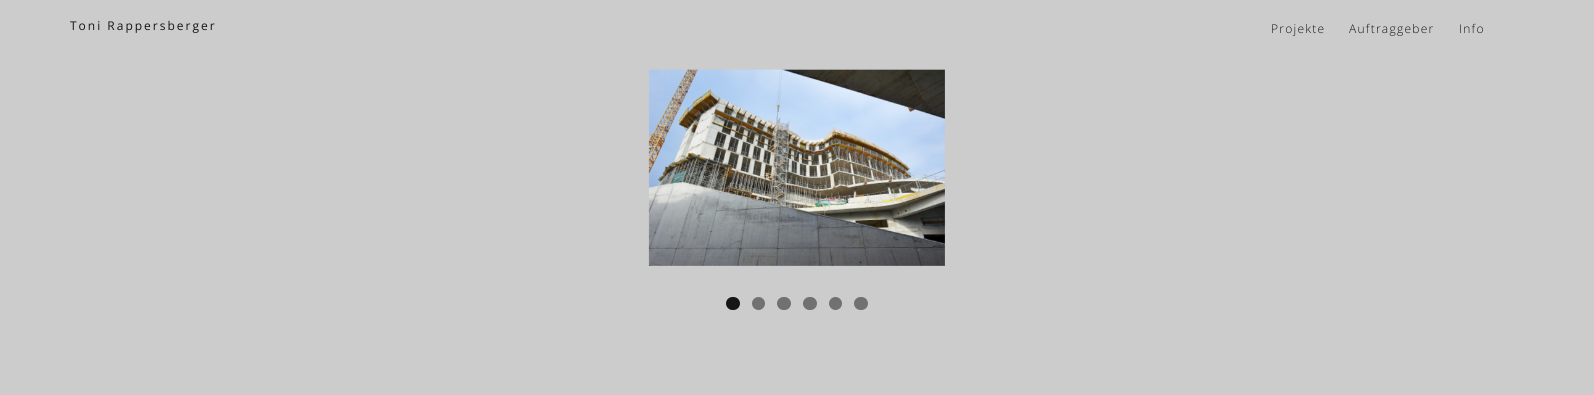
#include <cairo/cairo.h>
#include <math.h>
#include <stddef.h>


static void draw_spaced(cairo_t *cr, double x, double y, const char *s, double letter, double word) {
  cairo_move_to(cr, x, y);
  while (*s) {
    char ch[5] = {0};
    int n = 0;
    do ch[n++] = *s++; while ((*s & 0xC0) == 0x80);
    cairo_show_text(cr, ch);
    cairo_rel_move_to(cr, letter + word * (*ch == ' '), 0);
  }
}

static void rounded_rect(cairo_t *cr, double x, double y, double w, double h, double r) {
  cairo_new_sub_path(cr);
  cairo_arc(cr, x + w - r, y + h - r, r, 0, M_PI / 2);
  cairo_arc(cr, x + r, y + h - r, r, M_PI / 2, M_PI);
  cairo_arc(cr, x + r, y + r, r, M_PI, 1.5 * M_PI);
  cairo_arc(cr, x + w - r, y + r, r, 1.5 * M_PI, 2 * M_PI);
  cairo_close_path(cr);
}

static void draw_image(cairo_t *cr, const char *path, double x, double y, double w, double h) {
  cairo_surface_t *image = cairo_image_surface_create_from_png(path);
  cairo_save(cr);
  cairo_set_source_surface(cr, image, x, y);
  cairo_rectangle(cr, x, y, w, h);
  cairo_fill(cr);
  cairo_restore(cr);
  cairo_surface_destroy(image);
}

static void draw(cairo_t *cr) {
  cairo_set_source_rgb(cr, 204 / 255.0, 204 / 255.0, 204 / 255.0);
  cairo_paint(cr);
  draw_image(cr, "images/1.png", 648, 69, 297, 197);
  cairo_set_source_rgb(cr, 23 / 255.0, 22 / 255.0, 23 / 255.0);
  rounded_rect(cr, 726, 297, 14, 13, 6.5);
  cairo_fill(cr);
  cairo_set_source_rgb(cr, 114 / 255.0, 113 / 255.0, 114 / 255.0);
  cairo_arc(cr, 758.5, 303.5, 6.5, 0, 2 * M_PI);
  cairo_fill(cr);
  rounded_rect(cr, 777, 297, 14, 13, 6.5);
  cairo_fill(cr);
  rounded_rect(cr, 803, 297, 14, 13, 6.5);
  cairo_fill(cr);
  cairo_arc(cr, 835.5, 303.5, 6.5, 0, 2 * M_PI);
  cairo_fill(cr);
  rounded_rect(cr, 854, 297, 14, 13, 6.5);
  cairo_fill(cr);
  cairo_select_font_face(cr, "Open Sans", CAIRO_FONT_SLANT_NORMAL, CAIRO_FONT_WEIGHT_NORMAL);
  cairo_set_font_size(cr, 12);
  cairo_set_source_rgb(cr, 23 / 255.0, 22 / 255.0, 23 / 255.0);
  draw_spaced(cr, 70, 30, "Toni Rappersberger", 2, 0);
  cairo_select_font_face(cr, "Open Sans Light", CAIRO_FONT_SLANT_NORMAL, CAIRO_FONT_WEIGHT_NORMAL);
  draw_spaced(cr, 1271, 33, "Projekte", 1.25, 0);
  draw_spaced(cr, 1349, 33, "Auftraggeber", 1.25, 0);
  draw_spaced(cr, 1459, 33, "Info", 1.25, 0);
}

int main(void) {
  cairo_surface_t *surface = cairo_image_surface_create(CAIRO_FORMAT_RGB24, 1594, 395);
  cairo_t *cr = cairo_create(surface);
  cairo_font_options_t *options = cairo_font_options_create();
  cairo_font_options_set_hint_metrics(options, CAIRO_HINT_METRICS_OFF);
  cairo_font_options_set_hint_style(options, CAIRO_HINT_STYLE_NONE);
  cairo_set_font_options(cr, options);
  cairo_set_miter_limit(cr, 4);
  draw(cr);
  cairo_surface_write_to_png(surface, "out.png");
  cairo_font_options_destroy(options);
  cairo_destroy(cr);
  cairo_surface_destroy(surface);
  return 0;
}
